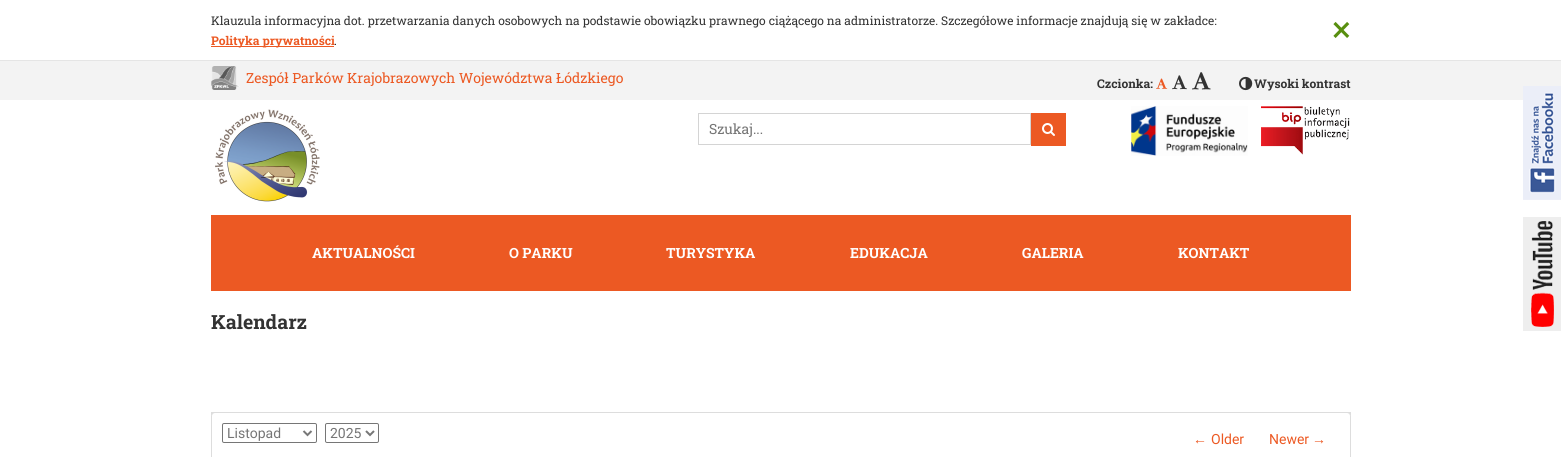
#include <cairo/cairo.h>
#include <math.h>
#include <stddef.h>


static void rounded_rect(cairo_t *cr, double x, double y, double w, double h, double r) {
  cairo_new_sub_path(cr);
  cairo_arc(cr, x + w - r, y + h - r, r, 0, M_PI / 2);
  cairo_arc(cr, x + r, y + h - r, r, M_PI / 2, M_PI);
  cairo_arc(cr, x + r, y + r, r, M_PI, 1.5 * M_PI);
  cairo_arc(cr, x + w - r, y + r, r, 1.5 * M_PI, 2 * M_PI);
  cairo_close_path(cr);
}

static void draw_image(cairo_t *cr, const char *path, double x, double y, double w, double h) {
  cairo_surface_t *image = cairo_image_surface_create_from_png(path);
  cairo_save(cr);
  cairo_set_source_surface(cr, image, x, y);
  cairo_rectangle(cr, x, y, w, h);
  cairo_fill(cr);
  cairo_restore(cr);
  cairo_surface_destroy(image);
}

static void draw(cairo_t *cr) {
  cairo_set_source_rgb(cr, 1, 1, 1);
  cairo_paint(cr);
  cairo_set_source_rgb(cr, 229 / 255.0, 229 / 255.0, 229 / 255.0);
  cairo_rectangle(cr, 0, 60, 1561, 1);
  cairo_fill(cr);
  cairo_set_source_rgb(cr, 236 / 255.0, 89 / 255.0, 35 / 255.0);
  cairo_rectangle(cr, 211, 46, 123, 1);
  cairo_fill(cr);
  cairo_set_source_rgb(cr, 243 / 255.0, 243 / 255.0, 243 / 255.0);
  cairo_rectangle(cr, 0, 61, 1561, 39);
  cairo_fill(cr);
  draw_image(cr, "images/1.png", 211, 66, 29, 24);
  draw_image(cr, "images/2.png", 1156, 78, 12, 11);
  draw_image(cr, "images/3.png", 1172, 75, 15, 15);
  draw_image(cr, "images/4.png", 1192, 72, 19, 18);
  draw_image(cr, "images/5.png", 1239, 76, 14, 15);
  draw_image(cr, "images/6.png", 215, 109, 105, 93);
  cairo_rectangle(cr, 698.5, 113.5, 332, 31);
  cairo_set_source_rgb(cr, 212 / 255.0, 212 / 255.0, 212 / 255.0);
  cairo_set_line_width(cr, 1);
  cairo_stroke(cr);
  cairo_set_source_rgb(cr, 236 / 255.0, 89 / 255.0, 35 / 255.0);
  cairo_rectangle(cr, 1031, 113, 35, 33);
  cairo_fill(cr);
  draw_image(cr, "images/7.png", 1042, 123, 13, 13);
  draw_image(cr, "images/8.png", 1131, 106, 117, 50);
  draw_image(cr, "images/9.png", 1261, 106, 89, 49);
  cairo_rectangle(cr, 211, 215, 1140, 76);
  cairo_fill(cr);
  rounded_rect(cr, 211.5, 412.5, 1139, 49, 3.5);
  cairo_set_source_rgb(cr, 221 / 255.0, 221 / 255.0, 221 / 255.0);
  cairo_stroke(cr);
  cairo_rectangle(cr, 211, 412, 1140, 1);
  cairo_fill(cr);
  cairo_rectangle(cr, 1350, 412, 1, 3);
  cairo_fill(cr);
  cairo_rectangle(cr, 211, 412, 1, 3);
  cairo_fill(cr);
  rounded_rect(cr, 222.5, 423.5, 94, 19, 1.5);
  cairo_set_source_rgb(cr, 118 / 255.0, 118 / 255.0, 118 / 255.0);
  cairo_stroke(cr);
  cairo_new_path(cr);
  cairo_move_to(cr, 303.5, 431);
  cairo_line_to(cr, 307.5, 435);
  cairo_line_to(cr, 311.5, 431);
  cairo_set_source_rgb(cr, 119 / 255.0, 119 / 255.0, 119 / 255.0);
  cairo_set_line_width(cr, 2);
  cairo_stroke(cr);
  rounded_rect(cr, 325.5, 423.5, 53, 19, 1.5);
  cairo_set_source_rgb(cr, 118 / 255.0, 118 / 255.0, 118 / 255.0);
  cairo_set_line_width(cr, 1);
  cairo_stroke(cr);
  cairo_new_path(cr);
  cairo_move_to(cr, 366, 431);
  cairo_line_to(cr, 370, 435);
  cairo_line_to(cr, 374, 431);
  cairo_set_source_rgb(cr, 119 / 255.0, 119 / 255.0, 119 / 255.0);
  cairo_set_line_width(cr, 2);
  cairo_stroke(cr);
  draw_image(cr, "images/10.png", 1523, 86, 38, 114);
  draw_image(cr, "images/11.png", 1523, 217, 38, 114);
  cairo_select_font_face(cr, "Roboto Slab", CAIRO_FONT_SLANT_NORMAL, CAIRO_FONT_WEIGHT_NORMAL);
  cairo_set_font_size(cr, 12);
  cairo_set_source_rgb(cr, 51 / 255.0, 51 / 255.0, 51 / 255.0);
  cairo_move_to(cr, 211, 25);
  cairo_show_text(cr, "Klauzula informacyjna dot. przetwarzania danych osobowych na podstawie obowiązku prawnego ciążącego na administratorze. Szczegółowe informacje znajdują się w zakładce:");
  cairo_set_font_size(cr, 36);
  cairo_set_source_rgb(cr, 88 / 255.0, 143 / 255.0, 15 / 255.0);
  cairo_move_to(cr, 1332, 42);
  cairo_show_text(cr, "×");
  cairo_select_font_face(cr, "Roboto Slab", CAIRO_FONT_SLANT_NORMAL, CAIRO_FONT_WEIGHT_BOLD);
  cairo_set_font_size(cr, 12);
  cairo_set_source_rgb(cr, 236 / 255.0, 89 / 255.0, 35 / 255.0);
  cairo_move_to(cr, 211, 45);
  cairo_show_text(cr, "Polityka prywatności");
  cairo_select_font_face(cr, "Roboto Slab", CAIRO_FONT_SLANT_NORMAL, CAIRO_FONT_WEIGHT_NORMAL);
  cairo_set_source_rgb(cr, 51 / 255.0, 51 / 255.0, 51 / 255.0);
  cairo_move_to(cr, 334, 45);
  cairo_show_text(cr, ".");
  cairo_set_font_size(cr, 14);
  cairo_set_source_rgb(cr, 236 / 255.0, 89 / 255.0, 35 / 255.0);
  cairo_move_to(cr, 246, 83);
  cairo_show_text(cr, "Zespół Parków Krajobrazowych Województwa Łódzkiego");
  cairo_select_font_face(cr, "Roboto Slab", CAIRO_FONT_SLANT_NORMAL, CAIRO_FONT_WEIGHT_BOLD);
  cairo_set_font_size(cr, 12);
  cairo_set_source_rgb(cr, 51 / 255.0, 51 / 255.0, 51 / 255.0);
  cairo_move_to(cr, 1097, 88);
  cairo_show_text(cr, "Czcionka:");
  cairo_move_to(cr, 1254, 88);
  cairo_show_text(cr, "Wysoki kontrast");
  cairo_select_font_face(cr, "Roboto Slab", CAIRO_FONT_SLANT_NORMAL, CAIRO_FONT_WEIGHT_NORMAL);
  cairo_set_font_size(cr, 14);
  cairo_set_source_rgb(cr, 117 / 255.0, 117 / 255.0, 117 / 255.0);
  cairo_move_to(cr, 709, 134);
  cairo_show_text(cr, "Szukaj...");
  cairo_select_font_face(cr, "Roboto Slab", CAIRO_FONT_SLANT_NORMAL, CAIRO_FONT_WEIGHT_BOLD);
  cairo_set_source_rgb(cr, 1, 1, 1);
  cairo_move_to(cr, 312, 258);
  cairo_show_text(cr, "AKTUALNOŚCI");
  cairo_move_to(cr, 509, 258);
  cairo_show_text(cr, "O PARKU");
  cairo_move_to(cr, 666, 258);
  cairo_show_text(cr, "TURYSTYKA");
  cairo_move_to(cr, 850, 258);
  cairo_show_text(cr, "EDUKACJA");
  cairo_move_to(cr, 1022, 258);
  cairo_show_text(cr, "GALERIA");
  cairo_move_to(cr, 1178, 258);
  cairo_show_text(cr, "KONTAKT");
  cairo_set_font_size(cr, 19.5);
  cairo_set_source_rgb(cr, 51 / 255.0, 51 / 255.0, 51 / 255.0);
  cairo_move_to(cr, 211, 329);
  cairo_show_text(cr, "Kalendarz");
  cairo_select_font_face(cr, "Roboto", CAIRO_FONT_SLANT_NORMAL, CAIRO_FONT_WEIGHT_NORMAL);
  cairo_set_font_size(cr, 14);
  cairo_set_source_rgb(cr, 117 / 255.0, 117 / 255.0, 117 / 255.0);
  cairo_move_to(cr, 227, 438);
  cairo_show_text(cr, "Listopad");
  cairo_move_to(cr, 330, 438);
  cairo_show_text(cr, "2025");
  cairo_select_font_face(cr, "Liberation Serif", CAIRO_FONT_SLANT_NORMAL, CAIRO_FONT_WEIGHT_NORMAL);
  cairo_set_source_rgb(cr, 236 / 255.0, 89 / 255.0, 35 / 255.0);
  cairo_move_to(cr, 1193, 444);
  cairo_show_text(cr, "←");
  cairo_select_font_face(cr, "Roboto", CAIRO_FONT_SLANT_NORMAL, CAIRO_FONT_WEIGHT_NORMAL);
  cairo_move_to(cr, 1211, 444);
  cairo_show_text(cr, "Older");
  cairo_move_to(cr, 1269, 444);
  cairo_show_text(cr, "Newer");
  cairo_select_font_face(cr, "Liberation Serif", CAIRO_FONT_SLANT_NORMAL, CAIRO_FONT_WEIGHT_NORMAL);
  cairo_move_to(cr, 1312, 444);
  cairo_show_text(cr, "→");
}

int main(void) {
  cairo_surface_t *surface = cairo_image_surface_create(CAIRO_FORMAT_RGB24, 1561, 457);
  cairo_t *cr = cairo_create(surface);
  cairo_font_options_t *options = cairo_font_options_create();
  cairo_font_options_set_hint_metrics(options, CAIRO_HINT_METRICS_OFF);
  cairo_font_options_set_hint_style(options, CAIRO_HINT_STYLE_NONE);
  cairo_set_font_options(cr, options);
  cairo_set_miter_limit(cr, 4);
  draw(cr);
  cairo_surface_write_to_png(surface, "out.png");
  cairo_font_options_destroy(options);
  cairo_destroy(cr);
  cairo_surface_destroy(surface);
  return 0;
}
